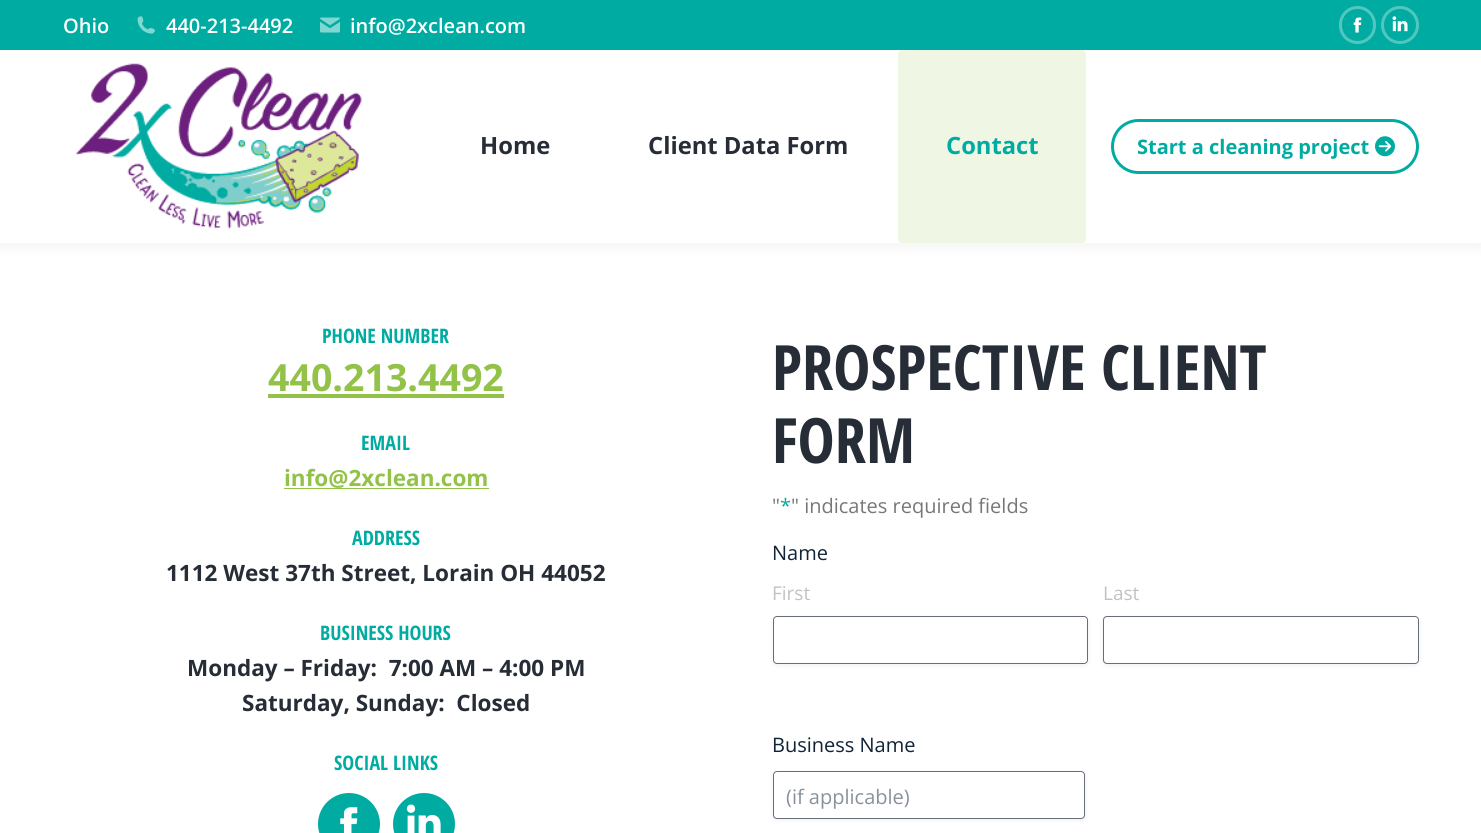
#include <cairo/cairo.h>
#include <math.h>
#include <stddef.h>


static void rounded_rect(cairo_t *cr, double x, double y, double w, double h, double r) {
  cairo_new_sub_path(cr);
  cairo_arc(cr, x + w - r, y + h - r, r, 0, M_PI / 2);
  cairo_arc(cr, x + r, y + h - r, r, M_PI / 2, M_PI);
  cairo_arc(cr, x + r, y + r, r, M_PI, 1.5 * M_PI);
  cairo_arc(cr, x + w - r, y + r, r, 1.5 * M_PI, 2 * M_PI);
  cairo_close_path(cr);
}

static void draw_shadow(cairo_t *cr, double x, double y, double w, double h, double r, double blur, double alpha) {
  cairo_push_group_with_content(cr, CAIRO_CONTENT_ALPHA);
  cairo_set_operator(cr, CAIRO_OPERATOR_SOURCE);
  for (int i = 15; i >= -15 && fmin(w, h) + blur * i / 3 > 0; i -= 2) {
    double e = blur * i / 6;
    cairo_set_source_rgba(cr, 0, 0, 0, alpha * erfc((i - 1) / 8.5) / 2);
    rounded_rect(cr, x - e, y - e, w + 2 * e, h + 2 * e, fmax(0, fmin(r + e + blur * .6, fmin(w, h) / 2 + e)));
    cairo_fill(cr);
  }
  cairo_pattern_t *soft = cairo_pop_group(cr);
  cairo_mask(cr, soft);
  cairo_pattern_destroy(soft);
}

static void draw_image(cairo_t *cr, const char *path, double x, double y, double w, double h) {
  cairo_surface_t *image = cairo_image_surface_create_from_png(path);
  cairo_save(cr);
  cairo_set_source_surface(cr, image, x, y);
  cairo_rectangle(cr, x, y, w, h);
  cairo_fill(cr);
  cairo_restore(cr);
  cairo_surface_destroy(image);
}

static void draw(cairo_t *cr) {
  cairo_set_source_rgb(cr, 1, 1, 1);
  cairo_paint(cr);
  cairo_set_source_rgb(cr, 0, 0, 0);
  draw_shadow(cr, -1, -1, 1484, 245, 0, 9.5, 0.07);
  cairo_set_source_rgb(cr, 1, 1, 1);
  cairo_rectangle(cr, 0, 50, 1481, 193);
  cairo_fill(cr);
  cairo_set_source_rgb(cr, 0, 172 / 255.0, 162 / 255.0);
  cairo_rectangle(cr, 0, 0, 1481, 50);
  cairo_fill(cr);
  draw_image(cr, "images/1.png", 137, 16, 18, 18);
  draw_image(cr, "images/2.png", 320, 17, 20, 16);
  rounded_rect(cr, 1340.5, 7.5, 34, 35, 17);
  cairo_set_source_rgb(cr, 82 / 255.0, 199 / 255.0, 192 / 255.0);
  cairo_set_line_width(cr, 3);
  cairo_stroke(cr);
  draw_image(cr, "images/3.png", 1353, 17, 9, 16);
  cairo_arc(cr, 1400, 25, 17.5, 0, 2 * M_PI);
  cairo_stroke(cr);
  draw_image(cr, "images/4.png", 1392, 16, 16, 16);
  draw_image(cr, "images/5.png", 76, 63, 286, 166);
  cairo_set_source_rgb(cr, 239 / 255.0, 246 / 255.0, 228 / 255.0);
  rounded_rect(cr, 898, 50, 188, 193, 4);
  cairo_fill(cr);
  rounded_rect(cr, 1112.5, 120.5, 305, 52, 26);
  cairo_set_source_rgb(cr, 0, 172 / 255.0, 162 / 255.0);
  cairo_stroke(cr);
  draw_image(cr, "images/6.png", 1375, 136, 20, 21);
  cairo_set_source_rgb(cr, 147 / 255.0, 194 / 255.0, 73 / 255.0);
  cairo_rectangle(cr, 268, 394, 236, 4);
  cairo_fill(cr);
  cairo_rectangle(cr, 284, 488, 205, 1);
  cairo_fill(cr);
  cairo_set_source_rgb(cr, 0, 172 / 255.0, 162 / 255.0);
  cairo_arc(cr, 349, 824, 31, 0, 2 * M_PI);
  cairo_fill(cr);
  draw_image(cr, "images/7.png", 340, 807, 18, 26);
  cairo_arc(cr, 424, 824, 31, 0, 2 * M_PI);
  cairo_fill(cr);
  draw_image(cr, "images/8.png", 406, 804, 35, 29);
  cairo_set_source_rgb(cr, 18 / 255.0, 25 / 255.0, 97 / 255.0);
  draw_shadow(cr, 773, 618, 315, 47, 4, 2.5, 0.08);
  cairo_set_source_rgb(cr, 1, 1, 1);
  rounded_rect(cr, 773.5, 616.5, 314, 47, 3.5);
  cairo_fill_preserve(cr);
  cairo_set_source_rgb(cr, 104 / 255.0, 110 / 255.0, 119 / 255.0);
  cairo_set_line_width(cr, 1);
  cairo_stroke(cr);
  cairo_set_source_rgb(cr, 18 / 255.0, 25 / 255.0, 97 / 255.0);
  draw_shadow(cr, 1103, 618, 316, 47, 4, 2.5, 0.08);
  cairo_set_source_rgb(cr, 1, 1, 1);
  rounded_rect(cr, 1103.5, 616.5, 315, 47, 3.5);
  cairo_fill_preserve(cr);
  cairo_set_source_rgb(cr, 104 / 255.0, 110 / 255.0, 119 / 255.0);
  cairo_stroke(cr);
  cairo_set_source_rgb(cr, 18 / 255.0, 25 / 255.0, 97 / 255.0);
  draw_shadow(cr, 773, 773, 312, 47, 4, 2.5, 0.08);
  cairo_set_source_rgb(cr, 1, 1, 1);
  rounded_rect(cr, 773.5, 771.5, 311, 47, 3.5);
  cairo_fill_preserve(cr);
  cairo_set_source_rgb(cr, 104 / 255.0, 110 / 255.0, 119 / 255.0);
  cairo_stroke(cr);
  cairo_select_font_face(cr, "Open Sans SemiBold", CAIRO_FONT_SLANT_NORMAL, CAIRO_FONT_WEIGHT_NORMAL);
  cairo_set_font_size(cr, 20);
  cairo_set_source_rgb(cr, 1, 1, 1);
  cairo_move_to(cr, 63, 33);
  cairo_show_text(cr, "Ohio");
  cairo_move_to(cr, 166, 33);
  cairo_show_text(cr, "440-213-4492");
  cairo_move_to(cr, 350, 33);
  cairo_show_text(cr, "info@2xclean.com");
  cairo_select_font_face(cr, "Open Sans", CAIRO_FONT_SLANT_NORMAL, CAIRO_FONT_WEIGHT_BOLD);
  cairo_set_font_size(cr, 23.75);
  cairo_set_source_rgb(cr, 38 / 255.0, 45 / 255.0, 55 / 255.0);
  cairo_move_to(cr, 480, 154);
  cairo_show_text(cr, "Home");
  cairo_move_to(cr, 648, 154);
  cairo_show_text(cr, "Client Data Form");
  cairo_set_source_rgb(cr, 0, 172 / 255.0, 162 / 255.0);
  cairo_move_to(cr, 946, 154);
  cairo_show_text(cr, "Contact");
  cairo_set_font_size(cr, 20);
  cairo_move_to(cr, 1137, 154);
  cairo_show_text(cr, "Start a cleaning project");
  cairo_select_font_face(cr, "Open Sans Condensed", CAIRO_FONT_SLANT_NORMAL, CAIRO_FONT_WEIGHT_BOLD);
  cairo_move_to(cr, 322, 343);
  cairo_show_text(cr, "PHONE NUMBER");
  cairo_select_font_face(cr, "Open Sans", CAIRO_FONT_SLANT_NORMAL, CAIRO_FONT_WEIGHT_BOLD);
  cairo_set_font_size(cr, 37.5);
  cairo_set_source_rgb(cr, 147 / 255.0, 194 / 255.0, 73 / 255.0);
  cairo_move_to(cr, 268, 391);
  cairo_show_text(cr, "440.213.4492");
  cairo_select_font_face(cr, "Open Sans Condensed", CAIRO_FONT_SLANT_NORMAL, CAIRO_FONT_WEIGHT_BOLD);
  cairo_set_font_size(cr, 20);
  cairo_set_source_rgb(cr, 0, 172 / 255.0, 162 / 255.0);
  cairo_move_to(cr, 361, 450);
  cairo_show_text(cr, "EMAIL");
  cairo_select_font_face(cr, "Open Sans", CAIRO_FONT_SLANT_NORMAL, CAIRO_FONT_WEIGHT_BOLD);
  cairo_set_font_size(cr, 22.5);
  cairo_set_source_rgb(cr, 147 / 255.0, 194 / 255.0, 73 / 255.0);
  cairo_move_to(cr, 284, 486);
  cairo_show_text(cr, "info@2xclean.com");
  cairo_select_font_face(cr, "Open Sans Condensed", CAIRO_FONT_SLANT_NORMAL, CAIRO_FONT_WEIGHT_BOLD);
  cairo_set_font_size(cr, 20);
  cairo_set_source_rgb(cr, 0, 172 / 255.0, 162 / 255.0);
  cairo_move_to(cr, 352, 545);
  cairo_show_text(cr, "ADDRESS");
  cairo_select_font_face(cr, "Open Sans", CAIRO_FONT_SLANT_NORMAL, CAIRO_FONT_WEIGHT_BOLD);
  cairo_set_font_size(cr, 22.5);
  cairo_set_source_rgb(cr, 38 / 255.0, 45 / 255.0, 55 / 255.0);
  cairo_move_to(cr, 166, 581);
  cairo_show_text(cr, "1112 West 37th Street, Lorain OH 44052");
  cairo_select_font_face(cr, "Open Sans Condensed", CAIRO_FONT_SLANT_NORMAL, CAIRO_FONT_WEIGHT_BOLD);
  cairo_set_font_size(cr, 20);
  cairo_set_source_rgb(cr, 0, 172 / 255.0, 162 / 255.0);
  cairo_move_to(cr, 320, 640);
  cairo_show_text(cr, "BUSINESS HOURS");
  cairo_select_font_face(cr, "Open Sans", CAIRO_FONT_SLANT_NORMAL, CAIRO_FONT_WEIGHT_BOLD);
  cairo_set_font_size(cr, 22.5);
  cairo_set_source_rgb(cr, 38 / 255.0, 45 / 255.0, 55 / 255.0);
  cairo_move_to(cr, 187, 676);
  cairo_show_text(cr, "Monday – Friday:  7:00 AM – 4:00 PM");
  cairo_move_to(cr, 242, 711);
  cairo_show_text(cr, "Saturday, Sunday:  Closed");
  cairo_select_font_face(cr, "Open Sans Condensed", CAIRO_FONT_SLANT_NORMAL, CAIRO_FONT_WEIGHT_BOLD);
  cairo_set_font_size(cr, 20);
  cairo_set_source_rgb(cr, 0, 172 / 255.0, 162 / 255.0);
  cairo_move_to(cr, 334, 770);
  cairo_show_text(cr, "SOCIAL LINKS");
  cairo_set_font_size(cr, 62.5);
  cairo_set_source_rgb(cr, 38 / 255.0, 45 / 255.0, 55 / 255.0);
  cairo_move_to(cr, 772, 390);
  cairo_show_text(cr, "PROSPECTIVE CLIENT");
  cairo_move_to(cr, 772, 463);
  cairo_show_text(cr, "FORM");
  cairo_select_font_face(cr, "Open Sans", CAIRO_FONT_SLANT_NORMAL, CAIRO_FONT_WEIGHT_NORMAL);
  cairo_set_font_size(cr, 20);
  cairo_set_source_rgb(cr, 119 / 255.0, 119 / 255.0, 119 / 255.0);
  cairo_move_to(cr, 772, 513);
  cairo_show_text(cr, "\"");
  cairo_set_source_rgb(cr, 0, 172 / 255.0, 162 / 255.0);
  cairo_move_to(cr, 780, 513);
  cairo_show_text(cr, "*");
  cairo_set_source_rgb(cr, 119 / 255.0, 119 / 255.0, 119 / 255.0);
  cairo_move_to(cr, 791, 513);
  cairo_show_text(cr, "\" indicates required fields");
  cairo_set_source_rgb(cr, 17 / 255.0, 35 / 255.0, 55 / 255.0);
  cairo_move_to(cr, 772, 560);
  cairo_show_text(cr, "Name");
  cairo_set_font_size(cr, 19);
  cairo_set_source_rgb(cr, 194 / 255.0, 194 / 255.0, 194 / 255.0);
  cairo_move_to(cr, 772, 600);
  cairo_show_text(cr, "First");
  cairo_move_to(cr, 1103, 600);
  cairo_show_text(cr, "Last");
  cairo_set_font_size(cr, 20);
  cairo_set_source_rgb(cr, 17 / 255.0, 35 / 255.0, 55 / 255.0);
  cairo_move_to(cr, 772, 752);
  cairo_show_text(cr, "Business Name");
  cairo_set_source_rgb(cr, 136 / 255.0, 145 / 255.0, 155 / 255.0);
  cairo_move_to(cr, 786, 804);
  cairo_show_text(cr, "(if applicable)");
}

int main(void) {
  cairo_surface_t *surface = cairo_image_surface_create(CAIRO_FORMAT_RGB24, 1481, 833);
  cairo_t *cr = cairo_create(surface);
  cairo_font_options_t *options = cairo_font_options_create();
  cairo_font_options_set_hint_metrics(options, CAIRO_HINT_METRICS_OFF);
  cairo_font_options_set_hint_style(options, CAIRO_HINT_STYLE_NONE);
  cairo_set_font_options(cr, options);
  cairo_set_miter_limit(cr, 4);
  draw(cr);
  cairo_surface_write_to_png(surface, "out.png");
  cairo_font_options_destroy(options);
  cairo_destroy(cr);
  cairo_surface_destroy(surface);
  return 0;
}
